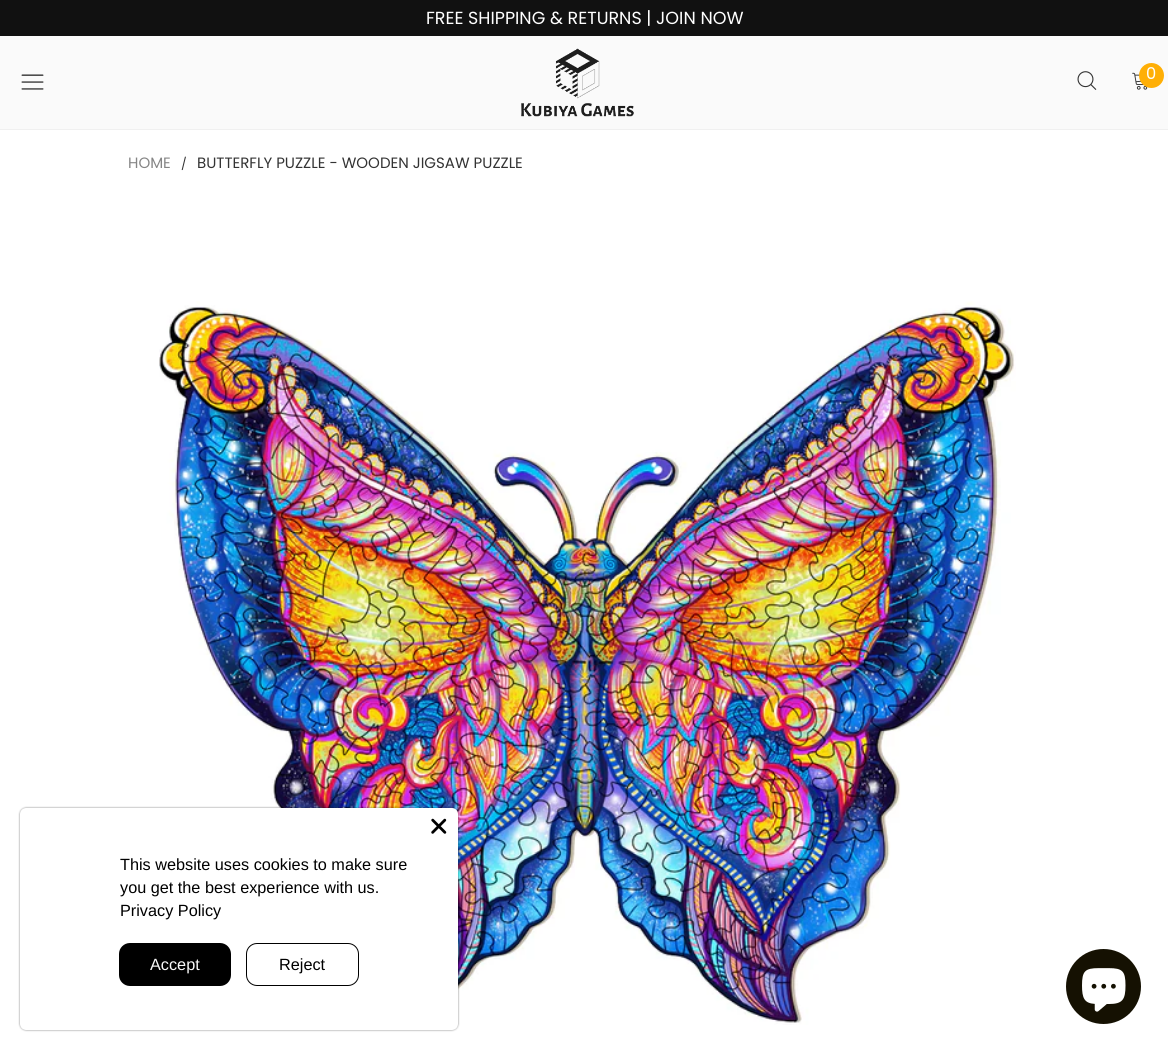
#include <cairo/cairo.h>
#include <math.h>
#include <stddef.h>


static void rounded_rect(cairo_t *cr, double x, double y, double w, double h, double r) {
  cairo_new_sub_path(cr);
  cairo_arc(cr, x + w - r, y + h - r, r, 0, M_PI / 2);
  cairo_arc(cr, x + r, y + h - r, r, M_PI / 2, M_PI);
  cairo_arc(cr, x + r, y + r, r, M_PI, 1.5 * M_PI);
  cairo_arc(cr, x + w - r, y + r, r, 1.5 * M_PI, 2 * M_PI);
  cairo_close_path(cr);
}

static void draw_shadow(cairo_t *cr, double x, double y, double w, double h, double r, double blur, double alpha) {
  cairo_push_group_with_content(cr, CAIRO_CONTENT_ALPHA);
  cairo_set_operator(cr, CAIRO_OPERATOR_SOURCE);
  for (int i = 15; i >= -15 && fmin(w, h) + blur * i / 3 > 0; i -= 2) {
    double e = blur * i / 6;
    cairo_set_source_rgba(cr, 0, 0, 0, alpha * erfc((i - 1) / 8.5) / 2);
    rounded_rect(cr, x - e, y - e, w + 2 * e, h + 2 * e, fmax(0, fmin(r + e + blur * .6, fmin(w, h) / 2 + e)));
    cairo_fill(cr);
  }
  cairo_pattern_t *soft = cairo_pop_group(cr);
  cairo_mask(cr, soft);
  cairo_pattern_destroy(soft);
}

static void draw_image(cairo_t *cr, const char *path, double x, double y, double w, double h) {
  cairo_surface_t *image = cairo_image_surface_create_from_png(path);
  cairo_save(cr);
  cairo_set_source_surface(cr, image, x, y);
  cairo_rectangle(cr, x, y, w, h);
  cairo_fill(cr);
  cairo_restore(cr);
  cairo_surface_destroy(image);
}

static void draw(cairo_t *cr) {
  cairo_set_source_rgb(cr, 1, 1, 1);
  cairo_paint(cr);
  cairo_set_source_rgb(cr, 17 / 255.0, 17 / 255.0, 17 / 255.0);
  cairo_rectangle(cr, 0, 0, 1168, 36);
  cairo_fill(cr);
  cairo_set_source_rgb(cr, 250 / 255.0, 250 / 255.0, 250 / 255.0);
  cairo_rectangle(cr, 0, 36, 1168, 93);
  cairo_fill(cr);
  cairo_set_source_rgb(cr, 240 / 255.0, 240 / 255.0, 240 / 255.0);
  cairo_rectangle(cr, 0, 129, 1168, 1);
  cairo_fill(cr);
  draw_image(cr, "images/1.png", 21, 74, 23, 16);
  draw_image(cr, "images/2.png", 521, 48, 113, 69);
  draw_image(cr, "images/3.png", 1077, 71, 20, 19);
  draw_image(cr, "images/4.png", 1132, 72, 16, 18);
  cairo_set_source_rgb(cr, 1, 175 / 255.0, 6 / 255.0);
  cairo_arc(cr, 1151.5, 75.5, 12.5, 0, 2 * M_PI);
  cairo_fill(cr);
  draw_image(cr, "images/5.png", 159, 301, 857, 724);
  cairo_set_source_rgb(cr, 0, 0, 0);
  draw_shadow(cr, 20, 808, 438, 222, 6, 1, 0.5);
  cairo_set_source_rgb(cr, 1, 1, 1);
  rounded_rect(cr, 20, 808, 438, 222, 6);
  cairo_fill(cr);
  draw_image(cr, "images/6.png", 431, 818, 16, 16);
  cairo_set_source_rgb(cr, 0, 0, 0);
  rounded_rect(cr, 119, 943, 112, 43, 11);
  cairo_fill(cr);
  rounded_rect(cr, 246.5, 943.5, 112, 42, 10.5);
  cairo_set_line_width(cr, 1);
  cairo_stroke(cr);
  cairo_set_source_rgb(cr, 21 / 255.0, 17 / 255.0, 2 / 255.0);
  cairo_arc(cr, 1103.5, 986.5, 37.5, 0, 2 * M_PI);
  cairo_fill(cr);
  draw_image(cr, "images/7.png", 1082, 968, 44, 44);
  cairo_select_font_face(cr, "Poppins", CAIRO_FONT_SLANT_NORMAL, CAIRO_FONT_WEIGHT_NORMAL);
  cairo_set_font_size(cr, 17.5);
  cairo_set_source_rgb(cr, 1, 1, 1);
  cairo_move_to(cr, 426, 24);
  cairo_show_text(cr, "FREE SHIPPING & RETURNS | JOIN NOW");
  cairo_set_font_size(cr, 16.25);
  cairo_move_to(cr, 1146, 79);
  cairo_show_text(cr, "0");
  cairo_set_font_size(cr, 15);
  cairo_set_source_rgb(cr, 133 / 255.0, 133 / 255.0, 133 / 255.0);
  cairo_move_to(cr, 128, 168);
  cairo_show_text(cr, "HOME");
  cairo_set_font_size(cr, 12);
  cairo_set_source_rgb(cr, 51 / 255.0, 51 / 255.0, 51 / 255.0);
  cairo_move_to(cr, 181, 168);
  cairo_show_text(cr, "/");
  cairo_set_font_size(cr, 15);
  cairo_move_to(cr, 197, 168);
  cairo_show_text(cr, "BUTTERFLY PUZZLE - WOODEN JIGSAW PUZZLE");
  cairo_select_font_face(cr, "Liberation Sans", CAIRO_FONT_SLANT_NORMAL, CAIRO_FONT_WEIGHT_NORMAL);
  cairo_set_font_size(cr, 16.25);
  cairo_set_source_rgb(cr, 0, 0, 0);
  cairo_move_to(cr, 120, 870);
  cairo_show_text(cr, "This website uses cookies to make sure");
  cairo_move_to(cr, 120, 893);
  cairo_show_text(cr, "you get the best experience with us.");
  cairo_move_to(cr, 120, 916);
  cairo_show_text(cr, "Privacy Policy");
  cairo_set_source_rgb(cr, 248 / 255.0, 248 / 255.0, 248 / 255.0);
  cairo_move_to(cr, 150, 970);
  cairo_show_text(cr, "Accept");
  cairo_set_source_rgb(cr, 0, 0, 0);
  cairo_move_to(cr, 279, 970);
  cairo_show_text(cr, "Reject");
}

int main(void) {
  cairo_surface_t *surface = cairo_image_surface_create(CAIRO_FORMAT_RGB24, 1168, 1050);
  cairo_t *cr = cairo_create(surface);
  cairo_font_options_t *options = cairo_font_options_create();
  cairo_font_options_set_hint_metrics(options, CAIRO_HINT_METRICS_OFF);
  cairo_font_options_set_hint_style(options, CAIRO_HINT_STYLE_NONE);
  cairo_set_font_options(cr, options);
  cairo_set_miter_limit(cr, 4);
  draw(cr);
  cairo_surface_write_to_png(surface, "out.png");
  cairo_font_options_destroy(options);
  cairo_destroy(cr);
  cairo_surface_destroy(surface);
  return 0;
}
